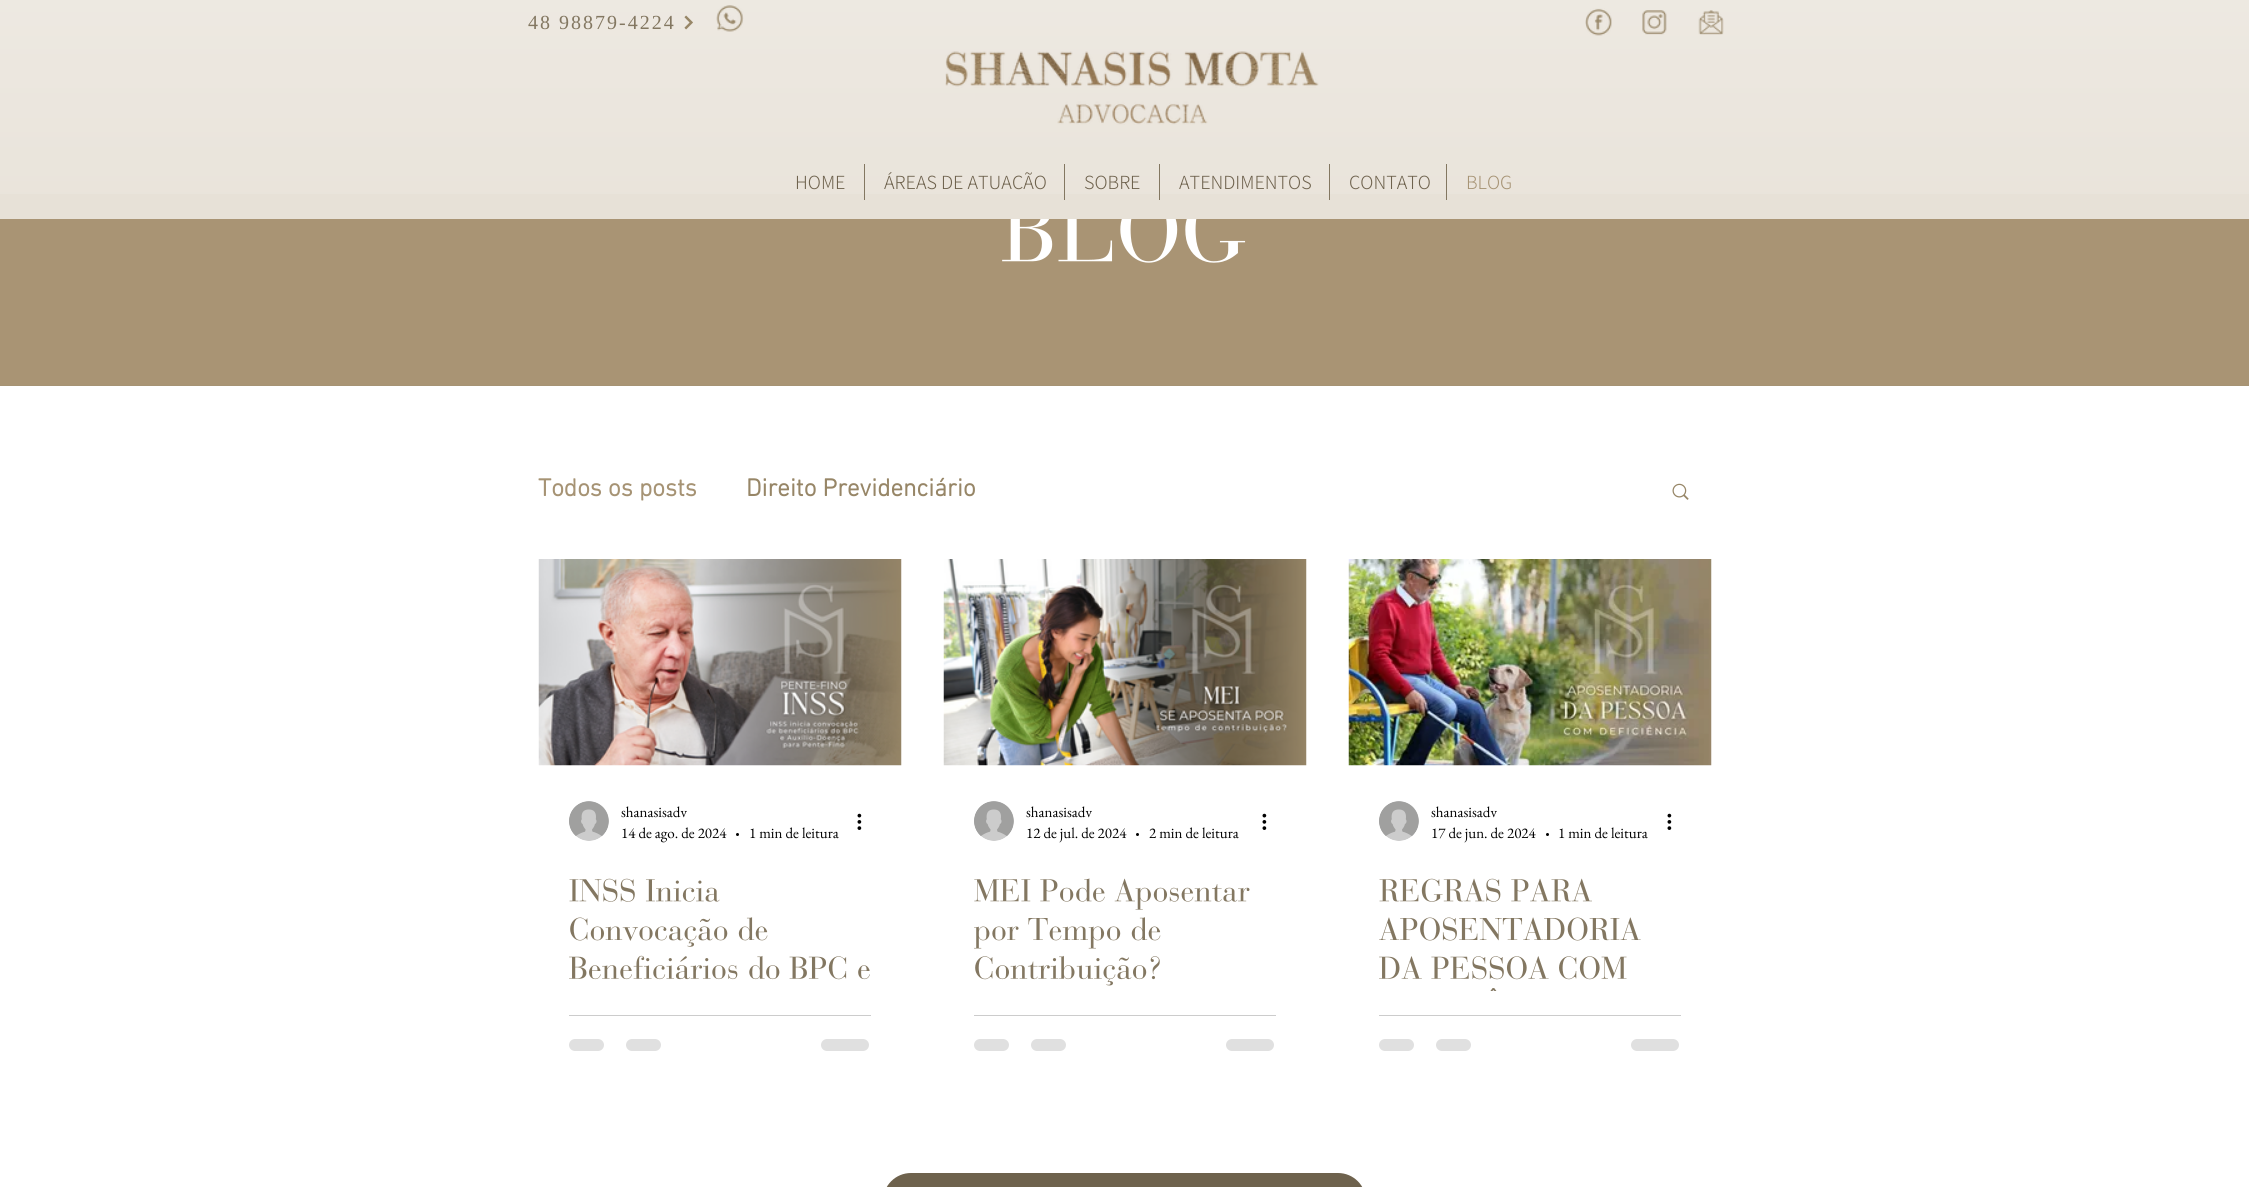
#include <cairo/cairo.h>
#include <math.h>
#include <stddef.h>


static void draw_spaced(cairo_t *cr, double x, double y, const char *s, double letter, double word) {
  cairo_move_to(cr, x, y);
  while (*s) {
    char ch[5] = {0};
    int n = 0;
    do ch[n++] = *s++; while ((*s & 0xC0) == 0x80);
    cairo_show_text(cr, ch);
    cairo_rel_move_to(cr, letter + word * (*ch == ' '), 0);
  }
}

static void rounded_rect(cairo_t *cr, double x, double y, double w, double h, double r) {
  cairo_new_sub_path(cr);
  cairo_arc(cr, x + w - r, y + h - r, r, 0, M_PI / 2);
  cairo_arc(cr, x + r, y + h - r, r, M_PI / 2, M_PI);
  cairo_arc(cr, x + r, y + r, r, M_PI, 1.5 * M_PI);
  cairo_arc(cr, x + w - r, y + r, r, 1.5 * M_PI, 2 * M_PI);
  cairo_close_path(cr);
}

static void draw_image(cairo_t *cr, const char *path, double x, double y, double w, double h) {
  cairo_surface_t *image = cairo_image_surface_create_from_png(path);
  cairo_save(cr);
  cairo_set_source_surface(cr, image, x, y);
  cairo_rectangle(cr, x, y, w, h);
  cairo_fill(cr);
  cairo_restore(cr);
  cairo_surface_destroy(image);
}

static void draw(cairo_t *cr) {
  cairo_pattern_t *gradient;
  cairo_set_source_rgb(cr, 1, 1, 1);
  cairo_paint(cr);
  cairo_set_source_rgb(cr, 231 / 255.0, 225 / 255.0, 215 / 255.0);
  cairo_rectangle(cr, 0, 0, 2249, 219);
  cairo_fill(cr);
  draw_image(cr, "images/1.png", 0, 0, 2249, 194);
  draw_image(cr, "images/2.png", 684, 15, 9, 15);
  draw_image(cr, "images/3.png", 716, 5, 28, 27);
  draw_image(cr, "images/4.png", 1585, 8, 27, 28);
  draw_image(cr, "images/5.png", 1642, 10, 25, 25);
  draw_image(cr, "images/6.png", 1698, 10, 26, 25);
  draw_image(cr, "images/7.png", 945, 51, 374, 74);
  cairo_set_source_rgb(cr, 131 / 255.0, 119 / 255.0, 97 / 255.0);
  cairo_rectangle(cr, 864, 164, 1, 36);
  cairo_fill(cr);
  cairo_rectangle(cr, 1064, 164, 1, 36);
  cairo_fill(cr);
  cairo_rectangle(cr, 1159, 164, 1, 36);
  cairo_fill(cr);
  cairo_rectangle(cr, 1329, 164, 1, 36);
  cairo_fill(cr);
  cairo_rectangle(cr, 1446, 164, 1, 36);
  cairo_fill(cr);
  gradient = cairo_pattern_create_linear(1125, -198, 1125, 385);
  cairo_pattern_add_color_stop_rgba(gradient, 0.49, 157 / 255.0, 138 / 255.0, 107 / 255.0, 1);
  cairo_pattern_add_color_stop_rgba(gradient, 0.63, 169 / 255.0, 148 / 255.0, 116 / 255.0, 1);
  cairo_set_source(cr, gradient);
  cairo_pattern_destroy(gradient);
  cairo_rectangle(cr, 0, 219, 2249, 166);
  cairo_fill(cr);
  draw_image(cr, "images/8.png", 1002, 219, 244, 44);
  cairo_set_source_rgb(cr, 166 / 255.0, 147 / 255.0, 116 / 255.0);
  cairo_rectangle(cr, 0, 385, 2249, 1);
  cairo_fill(cr);
  draw_image(cr, "images/9.png", 1672, 483, 17, 17);
  draw_image(cr, "images/10.png", 538, 559, 364, 207);
  draw_image(cr, "images/11.png", 569, 801, 40, 40);
  cairo_set_source_rgb(cr, 0, 0, 0);
  cairo_arc(cr, 737.5, 834.5, 1.5, 0, 2 * M_PI);
  cairo_fill(cr);
  draw_image(cr, "images/12.png", 857, 813, 5, 17);
  draw_image(cr, "images/13.png", 569, 878, 151, 24);
  draw_image(cr, "images/14.png", 570, 917, 198, 30);
  draw_image(cr, "images/15.png", 569, 955, 301, 25);
  cairo_set_source_rgb(cr, 204 / 255.0, 204 / 255.0, 204 / 255.0);
  cairo_rectangle(cr, 569, 1015, 302, 1);
  cairo_fill(cr);
  cairo_set_source_rgb(cr, 224 / 255.0, 224 / 255.0, 224 / 255.0);
  rounded_rect(cr, 569, 1039, 35, 12, 6);
  cairo_fill(cr);
  rounded_rect(cr, 626, 1039, 35, 12, 6);
  cairo_fill(cr);
  rounded_rect(cr, 821, 1039, 48, 12, 6);
  cairo_fill(cr);
  draw_image(cr, "images/16.png", 943, 559, 364, 207);
  draw_image(cr, "images/11.png", 974, 801, 40, 40);
  cairo_set_source_rgb(cr, 0, 0, 0);
  cairo_arc(cr, 1137.5, 834.5, 1.5, 0, 2 * M_PI);
  cairo_fill(cr);
  draw_image(cr, "images/12.png", 1262, 813, 5, 17);
  draw_image(cr, "images/17.png", 974, 878, 276, 32);
  draw_image(cr, "images/18.png", 974, 917, 187, 32);
  draw_image(cr, "images/19.png", 975, 955, 185, 31);
  cairo_set_source_rgb(cr, 204 / 255.0, 204 / 255.0, 204 / 255.0);
  cairo_rectangle(cr, 974, 1015, 302, 1);
  cairo_fill(cr);
  cairo_set_source_rgb(cr, 224 / 255.0, 224 / 255.0, 224 / 255.0);
  rounded_rect(cr, 974, 1039, 35, 12, 6);
  cairo_fill(cr);
  rounded_rect(cr, 1031, 1039, 35, 12, 6);
  cairo_fill(cr);
  rounded_rect(cr, 1226, 1039, 48, 12, 6);
  cairo_fill(cr);
  draw_image(cr, "images/20.png", 1348, 559, 364, 207);
  draw_image(cr, "images/11.png", 1379, 801, 40, 40);
  cairo_set_source_rgb(cr, 0, 0, 0);
  cairo_arc(cr, 1547.5, 834.5, 1.5, 0, 2 * M_PI);
  cairo_fill(cr);
  draw_image(cr, "images/12.png", 1667, 813, 5, 17);
  draw_image(cr, "images/21.png", 1379, 878, 213, 24);
  draw_image(cr, "images/22.png", 1379, 917, 262, 24);
  draw_image(cr, "images/23.png", 1379, 956, 248, 24);
  draw_image(cr, "images/24.png", 1490, 988, 7, 3);
  cairo_set_source_rgb(cr, 204 / 255.0, 204 / 255.0, 204 / 255.0);
  cairo_rectangle(cr, 1379, 1015, 302, 1);
  cairo_fill(cr);
  cairo_set_source_rgb(cr, 224 / 255.0, 224 / 255.0, 224 / 255.0);
  rounded_rect(cr, 1379, 1039, 35, 12, 6);
  cairo_fill(cr);
  rounded_rect(cr, 1436, 1039, 35, 12, 6);
  cairo_fill(cr);
  rounded_rect(cr, 1631, 1039, 48, 12, 6);
  cairo_fill(cr);
  cairo_set_source_rgb(cr, 110 / 255.0, 98 / 255.0, 77 / 255.0);
  rounded_rect(cr, 883, 1173, 483, 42, 28);
  cairo_fill(cr);
  cairo_select_font_face(cr, "Liberation Serif", CAIRO_FONT_SLANT_NORMAL, CAIRO_FONT_WEIGHT_NORMAL);
  cairo_set_font_size(cr, 20);
  cairo_set_source_rgb(cr, 131 / 255.0, 119 / 255.0, 97 / 255.0);
  draw_spaced(cr, 528, 29, "48 98879-4224", 2, 0);
  cairo_select_font_face(cr, "Assistant Light", CAIRO_FONT_SLANT_NORMAL, CAIRO_FONT_WEIGHT_NORMAL);
  cairo_set_source_rgb(cr, 110 / 255.0, 98 / 255.0, 77 / 255.0);
  cairo_move_to(cr, 795, 189);
  cairo_show_text(cr, "HOME");
  cairo_move_to(cr, 884, 189);
  cairo_show_text(cr, "ÁREAS DE ATUAÇÃO");
  cairo_move_to(cr, 1084, 189);
  cairo_show_text(cr, "SOBRE");
  cairo_move_to(cr, 1179, 189);
  cairo_show_text(cr, "ATENDIMENTOS");
  cairo_move_to(cr, 1349, 189);
  cairo_show_text(cr, "CONTATO");
  cairo_set_source_rgb(cr, 166 / 255.0, 147 / 255.0, 116 / 255.0);
  cairo_move_to(cr, 1466, 189);
  cairo_show_text(cr, "BLOG");
  cairo_select_font_face(cr, "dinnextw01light", CAIRO_FONT_SLANT_NORMAL, CAIRO_FONT_WEIGHT_BOLD);
  cairo_set_font_size(cr, 25);
  cairo_move_to(cr, 538, 496);
  cairo_show_text(cr, "Todos os posts");
  cairo_set_source_rgb(cr, 151 / 255.0, 134 / 255.0, 103 / 255.0);
  cairo_move_to(cr, 746, 496);
  cairo_show_text(cr, "Direito Previdenciário");
  cairo_select_font_face(cr, "EB Garamond", CAIRO_FONT_SLANT_NORMAL, CAIRO_FONT_WEIGHT_NORMAL);
  cairo_set_font_size(cr, 15);
  cairo_set_source_rgb(cr, 0, 0, 0);
  cairo_move_to(cr, 621, 817);
  cairo_show_text(cr, "shanasisadv");
  cairo_move_to(cr, 621, 838);
  cairo_show_text(cr, "14 de ago. de 2024");
  cairo_move_to(cr, 749, 838);
  cairo_show_text(cr, "1 min de leitura");
  cairo_move_to(cr, 1026, 817);
  cairo_show_text(cr, "shanasisadv");
  cairo_move_to(cr, 1026, 838);
  cairo_show_text(cr, "12 de jul. de 2024");
  cairo_move_to(cr, 1149, 838);
  cairo_show_text(cr, "2 min de leitura");
  cairo_move_to(cr, 1431, 817);
  cairo_show_text(cr, "shanasisadv");
  cairo_move_to(cr, 1431, 838);
  cairo_show_text(cr, "17 de jun. de 2024");
  cairo_move_to(cr, 1558, 838);
  cairo_show_text(cr, "1 min de leitura");
}

int main(void) {
  cairo_surface_t *surface = cairo_image_surface_create(CAIRO_FORMAT_RGB24, 2249, 1187);
  cairo_t *cr = cairo_create(surface);
  cairo_font_options_t *options = cairo_font_options_create();
  cairo_font_options_set_hint_metrics(options, CAIRO_HINT_METRICS_OFF);
  cairo_font_options_set_hint_style(options, CAIRO_HINT_STYLE_NONE);
  cairo_set_font_options(cr, options);
  cairo_set_miter_limit(cr, 4);
  draw(cr);
  cairo_surface_write_to_png(surface, "out.png");
  cairo_font_options_destroy(options);
  cairo_destroy(cr);
  cairo_surface_destroy(surface);
  return 0;
}
